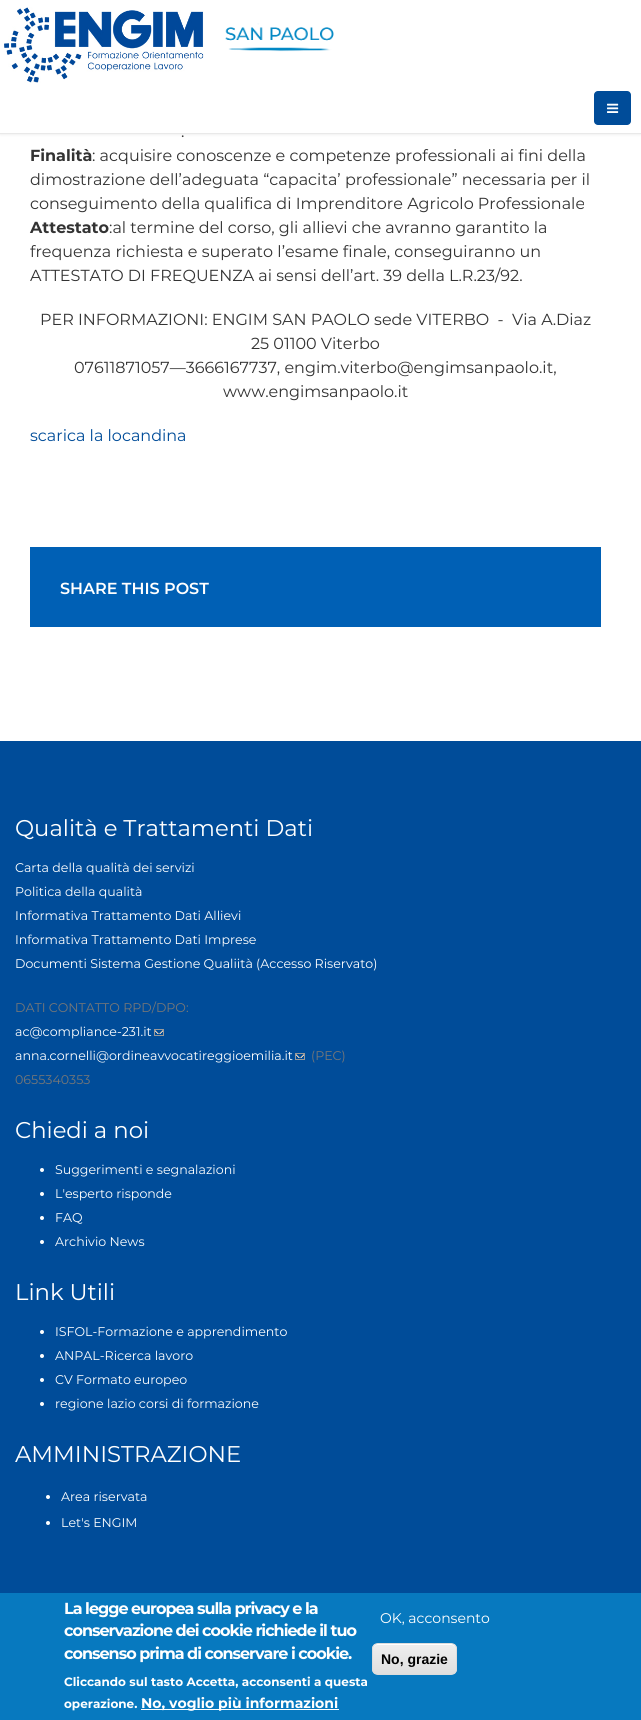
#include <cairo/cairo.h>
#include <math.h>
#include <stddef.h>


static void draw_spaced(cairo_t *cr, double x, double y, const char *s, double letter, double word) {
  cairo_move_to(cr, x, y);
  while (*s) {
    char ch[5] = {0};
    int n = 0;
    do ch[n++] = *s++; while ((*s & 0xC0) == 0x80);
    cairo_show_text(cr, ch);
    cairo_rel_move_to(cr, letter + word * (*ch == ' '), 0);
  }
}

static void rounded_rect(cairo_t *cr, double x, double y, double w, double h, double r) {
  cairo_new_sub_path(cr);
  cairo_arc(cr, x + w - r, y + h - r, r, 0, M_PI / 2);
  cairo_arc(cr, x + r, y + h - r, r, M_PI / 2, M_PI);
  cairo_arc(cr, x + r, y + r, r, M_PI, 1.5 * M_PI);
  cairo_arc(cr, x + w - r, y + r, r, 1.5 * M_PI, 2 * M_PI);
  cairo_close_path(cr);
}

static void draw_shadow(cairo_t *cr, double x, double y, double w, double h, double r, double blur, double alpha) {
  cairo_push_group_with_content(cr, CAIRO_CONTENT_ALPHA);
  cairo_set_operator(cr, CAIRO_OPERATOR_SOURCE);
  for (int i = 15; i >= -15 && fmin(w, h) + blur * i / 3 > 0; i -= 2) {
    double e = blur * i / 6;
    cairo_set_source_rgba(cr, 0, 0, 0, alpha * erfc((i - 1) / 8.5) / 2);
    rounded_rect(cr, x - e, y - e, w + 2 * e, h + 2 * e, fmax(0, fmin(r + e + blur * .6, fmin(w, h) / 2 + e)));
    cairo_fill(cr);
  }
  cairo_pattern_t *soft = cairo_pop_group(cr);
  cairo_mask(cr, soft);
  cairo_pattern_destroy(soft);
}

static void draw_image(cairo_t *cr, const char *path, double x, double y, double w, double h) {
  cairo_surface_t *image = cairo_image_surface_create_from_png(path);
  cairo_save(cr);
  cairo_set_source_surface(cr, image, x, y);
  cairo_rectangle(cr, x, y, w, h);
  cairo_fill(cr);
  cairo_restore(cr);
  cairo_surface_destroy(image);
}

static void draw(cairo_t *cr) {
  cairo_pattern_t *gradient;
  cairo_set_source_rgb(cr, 1, 1, 1);
  cairo_paint(cr);
  cairo_set_source_rgb(cr, 0, 0, 0);
  draw_shadow(cr, 0, -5, 641, 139, 0, 1.5, 0.1);
  cairo_set_source_rgb(cr, 1, 1, 1);
  cairo_rectangle(cr, 0, 0, 641, 133);
  cairo_fill(cr);
  cairo_set_source_rgb(cr, 233 / 255.0, 233 / 255.0, 233 / 255.0);
  cairo_rectangle(cr, 0, 133, 641, 1);
  cairo_fill(cr);
  draw_image(cr, "images/1.png", 4, 7, 200, 76);
  draw_image(cr, "images/2.png", 225, 23, 109, 29);
  cairo_set_source_rgb(cr, 0, 76 / 255.0, 153 / 255.0);
  rounded_rect(cr, 594, 91, 37, 34, 4);
  cairo_fill(cr);
  draw_image(cr, "images/3.png", 607, 103, 12, 10);
  cairo_set_source_rgb(cr, 0, 96 / 255.0, 181 / 255.0);
  cairo_rectangle(cr, 30, 547, 571, 80);
  cairo_fill(cr);
  cairo_set_source_rgb(cr, 0, 76 / 255.0, 153 / 255.0);
  cairo_rectangle(cr, 0, 741, 641, 852);
  cairo_fill(cr);
  draw_image(cr, "images/4.png", 154, 1029, 10, 7);
  draw_image(cr, "images/4.png", 295, 1053, 10, 7);
  cairo_set_source_rgb(cr, 1, 1, 1);
  cairo_arc(cr, 42, 1170, 2, 0, 2 * M_PI);
  cairo_fill(cr);
  cairo_arc(cr, 42, 1194, 2, 0, 2 * M_PI);
  cairo_fill(cr);
  cairo_arc(cr, 42, 1218, 2, 0, 2 * M_PI);
  cairo_fill(cr);
  cairo_arc(cr, 42, 1242, 2, 0, 2 * M_PI);
  cairo_fill(cr);
  cairo_arc(cr, 42, 1332, 2, 0, 2 * M_PI);
  cairo_fill(cr);
  cairo_arc(cr, 42, 1356, 2, 0, 2 * M_PI);
  cairo_fill(cr);
  cairo_arc(cr, 42, 1380, 2, 0, 2 * M_PI);
  cairo_fill(cr);
  cairo_arc(cr, 42, 1404, 2, 0, 2 * M_PI);
  cairo_fill(cr);
  cairo_arc(cr, 48, 1497, 2, 0, 2 * M_PI);
  cairo_fill(cr);
  cairo_arc(cr, 48, 1523, 2, 0, 2 * M_PI);
  cairo_fill(cr);
  cairo_set_source_rgb(cr, 7 / 255.0, 121 / 255.0, 191 / 255.0);
  cairo_rectangle(cr, 0, 1593, 641, 127);
  cairo_fill(cr);
  cairo_set_source_rgb(cr, 1, 1, 1);
  cairo_rectangle(cr, 141, 1709, 198, 1);
  cairo_fill(cr);
  cairo_save(cr);
  rounded_rect(cr, 372, 1643, 85, 32, 6);
  cairo_clip(cr);
  gradient = cairo_pattern_create_linear(415, 1644, 415, 1674);
  cairo_pattern_add_color_stop_rgba(gradient, 0.05, 237 / 255.0, 237 / 255.0, 237 / 255.0, 1);
  cairo_pattern_add_color_stop_rgba(gradient, 1, 223 / 255.0, 223 / 255.0, 223 / 255.0, 1);
  cairo_set_source(cr, gradient);
  cairo_pattern_destroy(gradient);
  cairo_rectangle(cr, 372, 1644, 85, 30);
  cairo_fill(cr);
  cairo_restore(cr);
  cairo_new_path(cr);
  cairo_move_to(cr, 378, 1645);
  cairo_line_to(cr, 451, 1645);
  cairo_curve_to(cr, 454, 1645, 456, 1647, 456, 1650);
  cairo_curve_to(cr, 456, 1641, 445, 1644, 439, 1644);
  cairo_line_to(cr, 390, 1644);
  cairo_curve_to(cr, 384, 1644, 373, 1641, 373, 1650);
  cairo_curve_to(cr, 373, 1647, 375, 1645, 378, 1645);
  cairo_close_path(cr);
  cairo_fill(cr);
  rounded_rect(cr, 372.5, 1643.5, 84, 31, 5.5);
  cairo_set_source_rgb(cr, 220 / 255.0, 220 / 255.0, 220 / 255.0);
  cairo_set_line_width(cr, 1);
  cairo_stroke(cr);
  cairo_select_font_face(cr, "Montserrat", CAIRO_FONT_SLANT_NORMAL, CAIRO_FONT_WEIGHT_NORMAL);
  cairo_set_font_size(cr, 16);
  cairo_set_source_rgb(cr, 51 / 255.0, 51 / 255.0, 51 / 255.0);
  cairo_move_to(cr, 181, 137);
  cairo_show_text(cr, ".");
  cairo_select_font_face(cr, "Montserrat", CAIRO_FONT_SLANT_NORMAL, CAIRO_FONT_WEIGHT_BOLD);
  cairo_move_to(cr, 30, 161);
  cairo_show_text(cr, "Finalità");
  cairo_select_font_face(cr, "Montserrat", CAIRO_FONT_SLANT_NORMAL, CAIRO_FONT_WEIGHT_NORMAL);
  cairo_move_to(cr, 92, 161);
  cairo_show_text(cr, ": acquisire conoscenze e competenze professionali ai fini della");
  cairo_move_to(cr, 30, 185);
  cairo_show_text(cr, "dimostrazione dell’adeguata “capacita’ professionale” necessaria per il");
  cairo_move_to(cr, 30, 209);
  cairo_show_text(cr, "conseguimento della qualifica di Imprenditore Agricolo Professionale");
  cairo_select_font_face(cr, "Montserrat", CAIRO_FONT_SLANT_NORMAL, CAIRO_FONT_WEIGHT_BOLD);
  cairo_move_to(cr, 30, 233);
  cairo_show_text(cr, "Attestato");
  cairo_select_font_face(cr, "Montserrat", CAIRO_FONT_SLANT_NORMAL, CAIRO_FONT_WEIGHT_NORMAL);
  cairo_move_to(cr, 109, 233);
  cairo_show_text(cr, ":al termine del corso, gli allievi che avranno garantito la");
  cairo_move_to(cr, 30, 257);
  cairo_show_text(cr, "frequenza richiesta e superato l’esame finale, conseguiranno un");
  cairo_move_to(cr, 30, 281);
  cairo_show_text(cr, "ATTESTATO DI FREQUENZA ai sensi dell’art. 39 della L.R.23/92.");
  cairo_move_to(cr, 40, 325);
  cairo_show_text(cr, "PER INFORMAZIONI: ENGIM SAN PAOLO sede VITERBO  -  Via A.Diaz");
  cairo_move_to(cr, 251, 349);
  cairo_show_text(cr, "25 01100 Viterbo");
  cairo_move_to(cr, 74, 373);
  cairo_show_text(cr, "07611871057—3666167737, engim.viterbo@engimsanpaolo.it,");
  cairo_move_to(cr, 223, 397);
  cairo_show_text(cr, "www.engimsanpaolo.it");
  cairo_set_source_rgb(cr, 0, 76 / 255.0, 153 / 255.0);
  cairo_move_to(cr, 30, 441);
  cairo_show_text(cr, "scarica la locandina");
  cairo_select_font_face(cr, "Montserrat SemiBold", CAIRO_FONT_SLANT_NORMAL, CAIRO_FONT_WEIGHT_NORMAL);
  cairo_set_source_rgb(cr, 1, 1, 1);
  cairo_move_to(cr, 60, 594);
  cairo_show_text(cr, "SHARE THIS POST");
  cairo_select_font_face(cr, "Montserrat", CAIRO_FONT_SLANT_NORMAL, CAIRO_FONT_WEIGHT_NORMAL);
  cairo_set_font_size(cr, 22.75);
  cairo_move_to(cr, 15, 836);
  cairo_show_text(cr, "Qualità e Trattamenti Dati");
  cairo_set_font_size(cr, 12.6);
  cairo_move_to(cr, 15, 872);
  cairo_show_text(cr, "Carta della qualità dei servizi");
  cairo_move_to(cr, 15, 896);
  cairo_show_text(cr, "Politica della qualità");
  cairo_move_to(cr, 15, 920);
  cairo_show_text(cr, "Informativa Trattamento Dati Allievi");
  cairo_move_to(cr, 15, 944);
  cairo_show_text(cr, "Informativa Trattamento Dati Imprese");
  cairo_move_to(cr, 15, 968);
  cairo_show_text(cr, "Documenti Sistema Gestione Qualiità (Accesso Riservato)");
  cairo_set_source_rgb(cr, 119 / 255.0, 119 / 255.0, 119 / 255.0);
  cairo_move_to(cr, 15, 1012);
  cairo_show_text(cr, "DATI CONTATTO RPD/DPO:");
  cairo_set_source_rgb(cr, 1, 1, 1);
  cairo_move_to(cr, 15, 1036);
  cairo_show_text(cr, "ac@compliance-231.it");
  cairo_move_to(cr, 15, 1060);
  cairo_show_text(cr, "anna.cornelli@ordineavvocatireggioemilia.it");
  cairo_set_source_rgb(cr, 119 / 255.0, 119 / 255.0, 119 / 255.0);
  cairo_move_to(cr, 311, 1060);
  cairo_show_text(cr, "(PEC)");
  cairo_move_to(cr, 15, 1084);
  cairo_show_text(cr, "0655340353");
  cairo_set_font_size(cr, 22.75);
  cairo_set_source_rgb(cr, 1, 1, 1);
  cairo_move_to(cr, 15, 1138);
  cairo_show_text(cr, "Chiedi a noi");
  cairo_set_font_size(cr, 12.6);
  cairo_move_to(cr, 55, 1174);
  cairo_show_text(cr, "Suggerimenti e segnalazioni");
  cairo_move_to(cr, 55, 1198);
  cairo_show_text(cr, "L'esperto risponde");
  cairo_move_to(cr, 55, 1222);
  cairo_show_text(cr, "FAQ");
  cairo_move_to(cr, 55, 1246);
  cairo_show_text(cr, "Archivio News");
  cairo_set_font_size(cr, 22.75);
  cairo_move_to(cr, 15, 1300);
  cairo_show_text(cr, "Link Utili");
  cairo_set_font_size(cr, 12.6);
  cairo_move_to(cr, 55, 1336);
  cairo_show_text(cr, "ISFOL-Formazione e apprendimento");
  cairo_move_to(cr, 55, 1360);
  cairo_show_text(cr, "ANPAL-Ricerca lavoro");
  cairo_move_to(cr, 55, 1384);
  cairo_show_text(cr, "CV Formato europeo");
  cairo_move_to(cr, 55, 1408);
  cairo_show_text(cr, "regione lazio corsi di formazione");
  cairo_set_font_size(cr, 22.75);
  cairo_move_to(cr, 15, 1462);
  cairo_show_text(cr, "AMMINISTRAZIONE");
  cairo_set_font_size(cr, 12.6);
  cairo_move_to(cr, 61, 1501);
  cairo_show_text(cr, "Area riservata");
  cairo_move_to(cr, 61, 1527);
  cairo_show_text(cr, "Let's ENGIM");
  cairo_select_font_face(cr, "Montserrat", CAIRO_FONT_SLANT_NORMAL, CAIRO_FONT_WEIGHT_BOLD);
  cairo_set_font_size(cr, 16);
  draw_spaced(cr, 64, 1614, "La legge europea sulla privacy e la", -1, 0);
  draw_spaced(cr, 64, 1636, "conservazione dei cookie richiede il tuo", -1, 0);
  draw_spaced(cr, 64, 1659, "consenso prima di conservare i cookie.", -1, 0);
  cairo_set_font_size(cr, 12);
  cairo_move_to(cr, 64, 1686);
  cairo_show_text(cr, "Cliccando sul tasto Accetta, acconsenti a questa");
  cairo_move_to(cr, 64, 1708);
  cairo_show_text(cr, "operazione.");
  cairo_set_font_size(cr, 14);
  cairo_move_to(cr, 141, 1708);
  cairo_show_text(cr, "No, voglio più informazioni");
  cairo_select_font_face(cr, "Montserrat", CAIRO_FONT_SLANT_NORMAL, CAIRO_FONT_WEIGHT_NORMAL);
  cairo_move_to(cr, 380, 1623);
  cairo_show_text(cr, "OK, acconsento");
  cairo_select_font_face(cr, "Liberation Sans", CAIRO_FONT_SLANT_NORMAL, CAIRO_FONT_WEIGHT_BOLD);
  cairo_set_source_rgb(cr, 0, 0, 0);
  cairo_move_to(cr, 381, 1664);
  cairo_show_text(cr, "No, grazie");
}

int main(void) {
  cairo_surface_t *surface = cairo_image_surface_create(CAIRO_FORMAT_RGB24, 641, 1720);
  cairo_t *cr = cairo_create(surface);
  cairo_font_options_t *options = cairo_font_options_create();
  cairo_font_options_set_hint_metrics(options, CAIRO_HINT_METRICS_OFF);
  cairo_font_options_set_hint_style(options, CAIRO_HINT_STYLE_NONE);
  cairo_set_font_options(cr, options);
  cairo_set_miter_limit(cr, 4);
  draw(cr);
  cairo_surface_write_to_png(surface, "out.png");
  cairo_font_options_destroy(options);
  cairo_destroy(cr);
  cairo_surface_destroy(surface);
  return 0;
}
